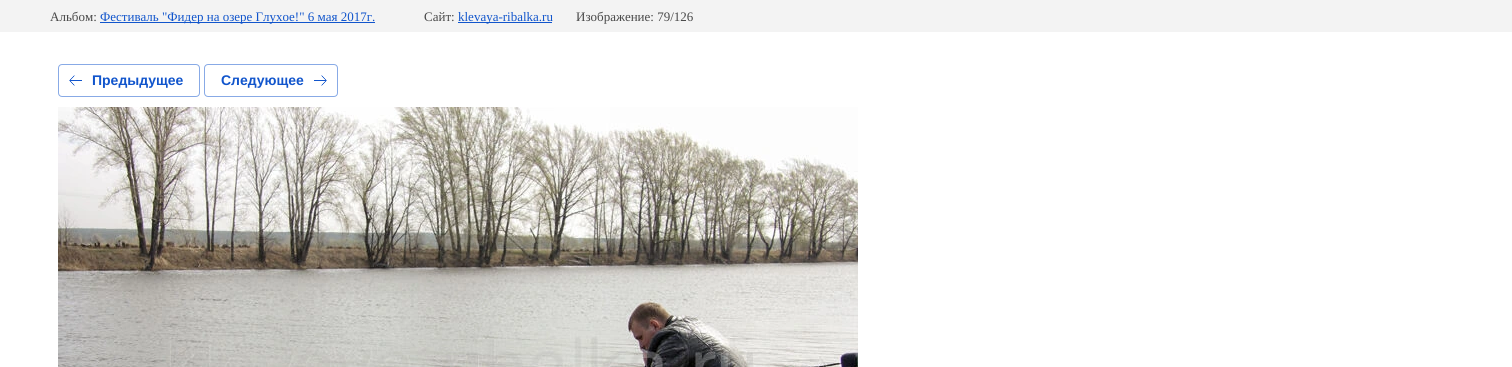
#include <cairo/cairo.h>
#include <math.h>
#include <stddef.h>


static void rounded_rect(cairo_t *cr, double x, double y, double w, double h, double r) {
  cairo_new_sub_path(cr);
  cairo_arc(cr, x + w - r, y + h - r, r, 0, M_PI / 2);
  cairo_arc(cr, x + r, y + h - r, r, M_PI / 2, M_PI);
  cairo_arc(cr, x + r, y + r, r, M_PI, 1.5 * M_PI);
  cairo_arc(cr, x + w - r, y + r, r, 1.5 * M_PI, 2 * M_PI);
  cairo_close_path(cr);
}

static void draw_image(cairo_t *cr, const char *path, double x, double y, double w, double h) {
  cairo_surface_t *image = cairo_image_surface_create_from_png(path);
  cairo_save(cr);
  cairo_set_source_surface(cr, image, x, y);
  cairo_rectangle(cr, x, y, w, h);
  cairo_fill(cr);
  cairo_restore(cr);
  cairo_surface_destroy(image);
}

static void draw(cairo_t *cr) {
  cairo_set_source_rgb(cr, 1, 1, 1);
  cairo_paint(cr);
  cairo_set_source_rgb(cr, 243 / 255.0, 243 / 255.0, 243 / 255.0);
  cairo_rectangle(cr, 0, 0, 1512, 32);
  cairo_fill(cr);
  cairo_set_source_rgb(cr, 17 / 255.0, 85 / 255.0, 204 / 255.0);
  cairo_rectangle(cr, 100, 22, 275, 1);
  cairo_fill(cr);
  cairo_rectangle(cr, 458, 22, 94, 1);
  cairo_fill(cr);
  rounded_rect(cr, 58.5, 64.5, 141, 32, 3.5);
  cairo_set_source_rgb(cr, 136 / 255.0, 170 / 255.0, 230 / 255.0);
  cairo_set_line_width(cr, 1);
  cairo_stroke(cr);
  draw_image(cr, "images/1.png", 69, 75, 13, 11);
  rounded_rect(cr, 204.5, 64.5, 133, 32, 3.5);
  cairo_stroke(cr);
  draw_image(cr, "images/2.png", 314, 75, 13, 11);
  draw_image(cr, "images/3.png", 58, 107, 800, 260);
  cairo_select_font_face(cr, "Liberation Serif", CAIRO_FONT_SLANT_NORMAL, CAIRO_FONT_WEIGHT_NORMAL);
  cairo_set_font_size(cr, 13);
  cairo_set_source_rgb(cr, 72 / 255.0, 72 / 255.0, 72 / 255.0);
  cairo_move_to(cr, 50, 21);
  cairo_show_text(cr, "Альбом:");
  cairo_set_source_rgb(cr, 17 / 255.0, 85 / 255.0, 204 / 255.0);
  cairo_move_to(cr, 100, 21);
  cairo_show_text(cr, "Фестиваль \"Фидер на озере Глухое!\" 6 мая 2017г.");
  cairo_set_source_rgb(cr, 72 / 255.0, 72 / 255.0, 72 / 255.0);
  cairo_move_to(cr, 424, 21);
  cairo_show_text(cr, "Сайт:");
  cairo_set_source_rgb(cr, 17 / 255.0, 85 / 255.0, 204 / 255.0);
  cairo_move_to(cr, 458, 21);
  cairo_show_text(cr, "klevaya-ribalka.ru");
  cairo_set_source_rgb(cr, 72 / 255.0, 72 / 255.0, 72 / 255.0);
  cairo_move_to(cr, 576, 21);
  cairo_show_text(cr, "Изображение: 79/126");
  cairo_select_font_face(cr, "Liberation Sans", CAIRO_FONT_SLANT_NORMAL, CAIRO_FONT_WEIGHT_BOLD);
  cairo_set_font_size(cr, 14);
  cairo_set_source_rgb(cr, 17 / 255.0, 85 / 255.0, 204 / 255.0);
  cairo_move_to(cr, 92, 85);
  cairo_show_text(cr, "Предыдущее");
  cairo_move_to(cr, 221, 85);
  cairo_show_text(cr, "Следующее");
}

int main(void) {
  cairo_surface_t *surface = cairo_image_surface_create(CAIRO_FORMAT_RGB24, 1512, 367);
  cairo_t *cr = cairo_create(surface);
  cairo_font_options_t *options = cairo_font_options_create();
  cairo_font_options_set_hint_metrics(options, CAIRO_HINT_METRICS_OFF);
  cairo_font_options_set_hint_style(options, CAIRO_HINT_STYLE_NONE);
  cairo_set_font_options(cr, options);
  cairo_set_miter_limit(cr, 4);
  draw(cr);
  cairo_surface_write_to_png(surface, "out.png");
  cairo_font_options_destroy(options);
  cairo_destroy(cr);
  cairo_surface_destroy(surface);
  return 0;
}
